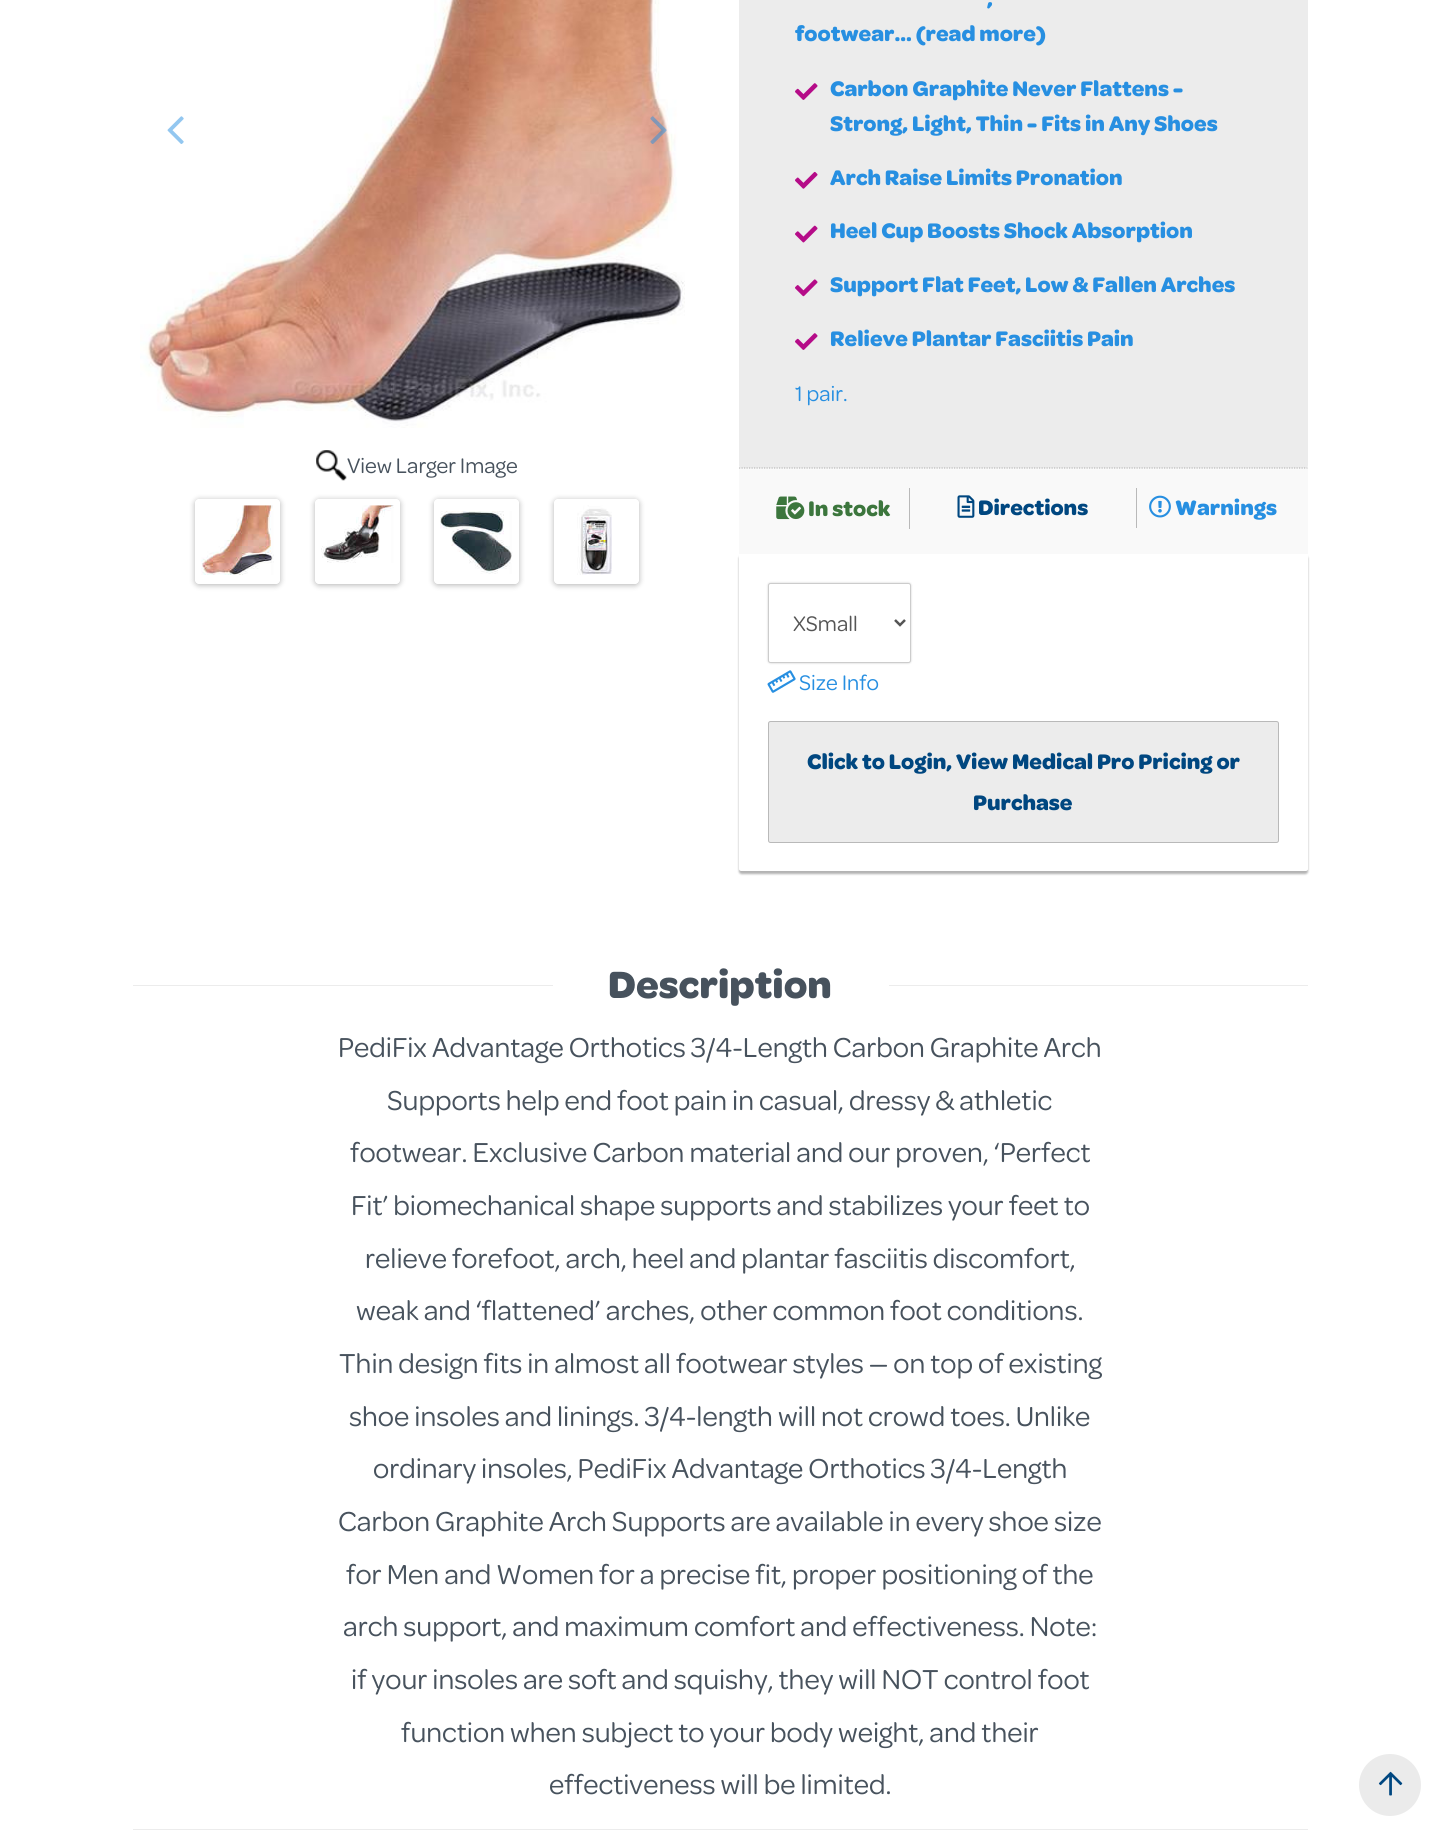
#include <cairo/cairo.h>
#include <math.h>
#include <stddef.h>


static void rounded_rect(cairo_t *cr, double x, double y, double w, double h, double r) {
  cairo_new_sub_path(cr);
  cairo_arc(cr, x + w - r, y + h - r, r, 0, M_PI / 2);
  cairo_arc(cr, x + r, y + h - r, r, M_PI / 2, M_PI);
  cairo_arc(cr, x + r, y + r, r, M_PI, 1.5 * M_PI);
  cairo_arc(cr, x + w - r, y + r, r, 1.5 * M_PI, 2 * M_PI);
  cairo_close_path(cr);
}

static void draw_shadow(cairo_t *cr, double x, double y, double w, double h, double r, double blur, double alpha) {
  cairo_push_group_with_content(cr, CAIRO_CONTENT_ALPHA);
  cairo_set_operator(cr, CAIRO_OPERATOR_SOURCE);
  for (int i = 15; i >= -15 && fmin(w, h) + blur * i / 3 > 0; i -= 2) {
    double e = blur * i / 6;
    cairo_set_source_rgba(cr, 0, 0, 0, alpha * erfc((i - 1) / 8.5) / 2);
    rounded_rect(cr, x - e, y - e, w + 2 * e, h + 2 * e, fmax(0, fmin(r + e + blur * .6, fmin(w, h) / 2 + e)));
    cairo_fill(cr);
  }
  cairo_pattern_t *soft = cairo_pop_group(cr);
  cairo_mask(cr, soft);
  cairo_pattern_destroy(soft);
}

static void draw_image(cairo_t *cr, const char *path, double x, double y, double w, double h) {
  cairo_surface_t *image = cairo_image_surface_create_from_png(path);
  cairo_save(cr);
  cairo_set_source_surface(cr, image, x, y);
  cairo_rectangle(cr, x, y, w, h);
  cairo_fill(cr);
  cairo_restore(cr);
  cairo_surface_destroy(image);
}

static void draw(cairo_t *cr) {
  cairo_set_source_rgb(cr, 1, 1, 1);
  cairo_paint(cr);
  draw_image(cr, "images/3.png", 140, 0, 545, 428);
  draw_image(cr, "images/1.png", 167, 116, 17, 28);
  draw_image(cr, "images/2.png", 650, 116, 17, 28);
  draw_image(cr, "images/4.png", 316, 450, 31, 31);
  cairo_save(cr);
  cairo_set_fill_rule(cr, CAIRO_FILL_RULE_EVEN_ODD);
  cairo_new_path(cr);
  cairo_move_to(cr, 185, 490);
  cairo_line_to(cr, 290, 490);
  cairo_line_to(cr, 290, 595);
  cairo_line_to(cr, 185, 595);
  cairo_close_path(cr);
  cairo_move_to(cr, 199, 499);
  cairo_line_to(cr, 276, 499);
  cairo_curve_to(cr, 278, 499, 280, 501, 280, 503);
  cairo_line_to(cr, 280, 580);
  cairo_curve_to(cr, 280, 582, 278, 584, 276, 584);
  cairo_line_to(cr, 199, 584);
  cairo_curve_to(cr, 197, 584, 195, 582, 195, 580);
  cairo_line_to(cr, 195, 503);
  cairo_curve_to(cr, 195, 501, 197, 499, 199, 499);
  cairo_close_path(cr);
  cairo_clip(cr);
  cairo_set_source_rgb(cr, 0, 0, 0);
  draw_shadow(cr, 195, 500, 85, 85, 4, 3, 0.3);
  cairo_restore(cr);
  draw_image(cr, "images/5.png", 201, 505, 73, 70);
  cairo_save(cr);
  cairo_set_fill_rule(cr, CAIRO_FILL_RULE_EVEN_ODD);
  cairo_new_path(cr);
  cairo_move_to(cr, 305, 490);
  cairo_line_to(cr, 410, 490);
  cairo_line_to(cr, 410, 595);
  cairo_line_to(cr, 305, 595);
  cairo_close_path(cr);
  cairo_move_to(cr, 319, 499);
  cairo_line_to(cr, 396, 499);
  cairo_curve_to(cr, 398, 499, 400, 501, 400, 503);
  cairo_line_to(cr, 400, 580);
  cairo_curve_to(cr, 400, 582, 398, 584, 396, 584);
  cairo_line_to(cr, 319, 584);
  cairo_curve_to(cr, 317, 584, 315, 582, 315, 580);
  cairo_line_to(cr, 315, 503);
  cairo_curve_to(cr, 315, 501, 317, 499, 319, 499);
  cairo_close_path(cr);
  cairo_clip(cr);
  cairo_set_source_rgb(cr, 0, 0, 0);
  draw_shadow(cr, 315, 500, 85, 85, 4, 3, 0.3);
  cairo_restore(cr);
  draw_image(cr, "images/6.png", 321, 505, 73, 58);
  cairo_save(cr);
  cairo_set_fill_rule(cr, CAIRO_FILL_RULE_EVEN_ODD);
  cairo_new_path(cr);
  cairo_move_to(cr, 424, 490);
  cairo_line_to(cr, 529, 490);
  cairo_line_to(cr, 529, 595);
  cairo_line_to(cr, 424, 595);
  cairo_close_path(cr);
  cairo_move_to(cr, 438, 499);
  cairo_line_to(cr, 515, 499);
  cairo_curve_to(cr, 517, 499, 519, 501, 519, 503);
  cairo_line_to(cr, 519, 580);
  cairo_curve_to(cr, 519, 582, 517, 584, 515, 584);
  cairo_line_to(cr, 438, 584);
  cairo_curve_to(cr, 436, 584, 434, 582, 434, 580);
  cairo_line_to(cr, 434, 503);
  cairo_curve_to(cr, 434, 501, 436, 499, 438, 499);
  cairo_close_path(cr);
  cairo_clip(cr);
  cairo_set_source_rgb(cr, 0, 0, 0);
  draw_shadow(cr, 434, 500, 85, 85, 4, 3, 0.3);
  cairo_restore(cr);
  draw_image(cr, "images/7.png", 440, 511, 73, 63);
  cairo_save(cr);
  cairo_set_fill_rule(cr, CAIRO_FILL_RULE_EVEN_ODD);
  cairo_new_path(cr);
  cairo_move_to(cr, 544, 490);
  cairo_line_to(cr, 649, 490);
  cairo_line_to(cr, 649, 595);
  cairo_line_to(cr, 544, 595);
  cairo_close_path(cr);
  cairo_move_to(cr, 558, 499);
  cairo_line_to(cr, 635, 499);
  cairo_curve_to(cr, 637, 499, 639, 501, 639, 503);
  cairo_line_to(cr, 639, 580);
  cairo_curve_to(cr, 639, 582, 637, 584, 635, 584);
  cairo_line_to(cr, 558, 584);
  cairo_curve_to(cr, 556, 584, 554, 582, 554, 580);
  cairo_line_to(cr, 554, 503);
  cairo_curve_to(cr, 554, 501, 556, 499, 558, 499);
  cairo_close_path(cr);
  cairo_clip(cr);
  cairo_set_source_rgb(cr, 0, 0, 0);
  draw_shadow(cr, 554, 500, 85, 85, 4, 3, 0.3);
  cairo_restore(cr);
  draw_image(cr, "images/8.png", 577, 505, 35, 70);
  cairo_set_source_rgb(cr, 236 / 255.0, 236 / 255.0, 236 / 255.0);
  rounded_rect(cr, 739, -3, 569, 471, 2.5);
  cairo_fill(cr);
  draw_image(cr, "images/9.png", 795, 83, 23, 17);
  draw_image(cr, "images/10.png", 795, 171, 23, 18);
  draw_image(cr, "images/11.png", 795, 225, 23, 18);
  draw_image(cr, "images/12.png", 795, 279, 23, 18);
  draw_image(cr, "images/9.png", 795, 333, 23, 17);
  cairo_set_source_rgb(cr, 249 / 255.0, 249 / 255.0, 249 / 255.0);
  cairo_rectangle(cr, 739, 468, 569, 86);
  cairo_fill(cr);
  cairo_new_path(cr);
  cairo_move_to(cr, 739, 468);
  cairo_line_to(cr, 1307.5, 468);
  cairo_set_source_rgb(cr, 185 / 255.0, 185 / 255.0, 185 / 255.0);
  cairo_set_line_width(cr, 1.2);
  cairo_set_dash(cr, (double[]){1.25, 1.25}, 2, 0);
  cairo_stroke(cr);
  cairo_rectangle(cr, 909, 488, 1, 41);
  cairo_fill(cr);
  draw_image(cr, "images/13.png", 776, 496, 29, 24);
  draw_image(cr, "images/14.png", 957, 495, 18, 23);
  cairo_rectangle(cr, 1136, 488, 1, 40);
  cairo_fill(cr);
  draw_image(cr, "images/15.png", 1149, 495, 22, 23);
  cairo_save(cr);
  cairo_set_fill_rule(cr, CAIRO_FILL_RULE_EVEN_ODD);
  cairo_new_path(cr);
  cairo_move_to(cr, 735, 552);
  cairo_line_to(cr, 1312, 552);
  cairo_line_to(cr, 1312, 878);
  cairo_line_to(cr, 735, 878);
  cairo_close_path(cr);
  cairo_move_to(cr, 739, 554);
  cairo_line_to(cr, 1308, 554);
  cairo_line_to(cr, 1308, 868.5);
  cairo_curve_to(cr, 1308, 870, 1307, 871, 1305.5, 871);
  cairo_line_to(cr, 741.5, 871);
  cairo_curve_to(cr, 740, 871, 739, 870, 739, 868.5);
  cairo_close_path(cr);
  cairo_clip(cr);
  cairo_set_source_rgb(cr, 0, 0, 0);
  draw_shadow(cr, 739, 556, 569, 318, 2.5, 1, 0.3);
  cairo_restore(cr);
  cairo_set_source_rgb(cr, 0, 0, 0);
  draw_shadow(cr, 768, 583, 143, 80, 2.5, 1, 0.2);
  cairo_set_source_rgb(cr, 1, 1, 1);
  rounded_rect(cr, 768.5, 583.5, 142, 79, 2);
  cairo_fill_preserve(cr);
  cairo_set_source_rgb(cr, 204 / 255.0, 204 / 255.0, 204 / 255.0);
  cairo_set_line_width(cr, 1);
  cairo_set_dash(cr, NULL, 0, 0);
  cairo_stroke(cr);
  cairo_new_path(cr);
  cairo_move_to(cr, 895, 620);
  cairo_line_to(cr, 900, 625);
  cairo_line_to(cr, 905, 620);
  cairo_set_source_rgb(cr, 85 / 255.0, 85 / 255.0, 85 / 255.0);
  cairo_set_line_width(cr, 2.5);
  cairo_stroke(cr);
  draw_image(cr, "images/16.png", 767, 670, 29, 23);
  cairo_set_source_rgb(cr, 236 / 255.0, 236 / 255.0, 236 / 255.0);
  rounded_rect(cr, 768.5, 721.5, 510, 121, 2);
  cairo_fill_preserve(cr);
  cairo_set_source_rgb(cr, 185 / 255.0, 185 / 255.0, 185 / 255.0);
  cairo_set_line_width(cr, 1);
  cairo_stroke(cr);
  cairo_set_source_rgb(cr, 236 / 255.0, 236 / 255.0, 236 / 255.0);
  cairo_rectangle(cr, 133, 985, 1175, 1);
  cairo_fill(cr);
  cairo_set_source_rgb(cr, 1, 1, 1);
  cairo_rectangle(cr, 553, 985, 336, 1);
  cairo_fill(cr);
  cairo_set_source_rgb(cr, 236 / 255.0, 236 / 255.0, 236 / 255.0);
  cairo_rectangle(cr, 133, 1829, 1175, 1);
  cairo_fill(cr);
  cairo_set_source_rgb(cr, 235 / 255.0, 235 / 255.0, 235 / 255.0);
  cairo_arc(cr, 1390, 1785, 31, 0, 2 * M_PI);
  cairo_fill(cr);
  draw_image(cr, "images/17.png", 1378, 1771, 25, 25);
  cairo_select_font_face(cr, "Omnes", CAIRO_FONT_SLANT_NORMAL, CAIRO_FONT_WEIGHT_NORMAL);
  cairo_set_font_size(cr, 22.5);
  cairo_set_source_rgb(cr, 71 / 255.0, 82 / 255.0, 93 / 255.0);
  cairo_move_to(cr, 347, 473);
  cairo_show_text(cr, "View Larger Image");
  cairo_select_font_face(cr, "Omnes", CAIRO_FONT_SLANT_NORMAL, CAIRO_FONT_WEIGHT_BOLD);
  cairo_set_source_rgb(cr, 39 / 255.0, 143 / 255.0, 225 / 255.0);
  cairo_move_to(cr, 987, 6);
  cairo_show_text(cr, ",");
  cairo_move_to(cr, 795, 41);
  cairo_show_text(cr, "footwear... (read more)");
  cairo_move_to(cr, 830, 96);
  cairo_show_text(cr, "Carbon Graphite Never Flattens -");
  cairo_move_to(cr, 830, 131);
  cairo_show_text(cr, "Strong, Light, Thin - Fits in Any Shoes");
  cairo_move_to(cr, 830, 185);
  cairo_show_text(cr, "Arch Raise Limits Pronation");
  cairo_move_to(cr, 830, 238);
  cairo_show_text(cr, "Heel Cup Boosts Shock Absorption");
  cairo_move_to(cr, 830, 292);
  cairo_show_text(cr, "Support Flat Feet, Low & Fallen Arches");
  cairo_move_to(cr, 830, 346);
  cairo_show_text(cr, "Relieve Plantar Fasciitis Pain");
  cairo_select_font_face(cr, "Omnes", CAIRO_FONT_SLANT_NORMAL, CAIRO_FONT_WEIGHT_NORMAL);
  cairo_move_to(cr, 795, 401);
  cairo_show_text(cr, "1 pair.");
  cairo_select_font_face(cr, "Omnes", CAIRO_FONT_SLANT_NORMAL, CAIRO_FONT_WEIGHT_BOLD);
  cairo_set_source_rgb(cr, 60 / 255.0, 118 / 255.0, 61 / 255.0);
  cairo_move_to(cr, 808, 516);
  cairo_show_text(cr, "In stock");
  cairo_set_source_rgb(cr, 0, 71 / 255.0, 128 / 255.0);
  cairo_move_to(cr, 978, 515);
  cairo_show_text(cr, "Directions");
  cairo_set_source_rgb(cr, 39 / 255.0, 143 / 255.0, 225 / 255.0);
  cairo_move_to(cr, 1175, 515);
  cairo_show_text(cr, "Warnings");
  cairo_select_font_face(cr, "Omnes", CAIRO_FONT_SLANT_NORMAL, CAIRO_FONT_WEIGHT_NORMAL);
  cairo_set_source_rgb(cr, 85 / 255.0, 85 / 255.0, 85 / 255.0);
  cairo_move_to(cr, 793, 631);
  cairo_show_text(cr, "XSmall");
  cairo_set_source_rgb(cr, 39 / 255.0, 143 / 255.0, 225 / 255.0);
  cairo_move_to(cr, 799, 690);
  cairo_show_text(cr, "Size Info");
  cairo_select_font_face(cr, "Omnes", CAIRO_FONT_SLANT_NORMAL, CAIRO_FONT_WEIGHT_BOLD);
  cairo_set_source_rgb(cr, 0, 71 / 255.0, 128 / 255.0);
  cairo_move_to(cr, 807, 769);
  cairo_show_text(cr, "Click to Login, View Medical Pro Pricing or");
  cairo_move_to(cr, 973, 810);
  cairo_show_text(cr, "Purchase");
  cairo_set_font_size(cr, 40.5);
  cairo_set_source_rgb(cr, 71 / 255.0, 82 / 255.0, 93 / 255.0);
  cairo_move_to(cr, 608, 998);
  cairo_show_text(cr, "Description");
  cairo_select_font_face(cr, "Omnes", CAIRO_FONT_SLANT_NORMAL, CAIRO_FONT_WEIGHT_NORMAL);
  cairo_set_font_size(cr, 29.25);
  cairo_move_to(cr, 338, 1057);
  cairo_show_text(cr, "PediFix Advantage Orthotics 3/4-Length Carbon Graphite Arch");
  cairo_move_to(cr, 387, 1110);
  cairo_show_text(cr, "Supports help end foot pain in casual, dressy & athletic");
  cairo_move_to(cr, 350, 1162);
  cairo_show_text(cr, "footwear. Exclusive Carbon material and our proven, ‘Perfect");
  cairo_move_to(cr, 351, 1215);
  cairo_show_text(cr, "Fit’ biomechanical shape supports and stabilizes your feet to");
  cairo_move_to(cr, 365, 1268);
  cairo_show_text(cr, "relieve forefoot, arch, heel and plantar fasciitis discomfort,");
  cairo_move_to(cr, 356, 1320);
  cairo_show_text(cr, "weak and ‘flattened’ arches, other common foot conditions.");
  cairo_move_to(cr, 339, 1373);
  cairo_show_text(cr, "Thin design fits in almost all footwear styles — on top of existing");
  cairo_move_to(cr, 349, 1426);
  cairo_show_text(cr, "shoe insoles and linings. 3/4-length will not crowd toes. Unlike");
  cairo_move_to(cr, 373, 1478);
  cairo_show_text(cr, "ordinary insoles, PediFix Advantage Orthotics 3/4-Length");
  cairo_move_to(cr, 338, 1531);
  cairo_show_text(cr, "Carbon Graphite Arch Supports are available in every shoe size");
  cairo_move_to(cr, 346, 1584);
  cairo_show_text(cr, "for Men and Women for a precise fit, proper positioning of the");
  cairo_move_to(cr, 343, 1636);
  cairo_show_text(cr, "arch support, and maximum comfort and effectiveness. Note:");
  cairo_move_to(cr, 351, 1689);
  cairo_show_text(cr, "if your insoles are soft and squishy, they will NOT control foot");
  cairo_move_to(cr, 401, 1742);
  cairo_show_text(cr, "function when subject to your body weight, and their");
  cairo_move_to(cr, 549, 1794);
  cairo_show_text(cr, "effectiveness will be limited.");
}

int main(void) {
  cairo_surface_t *surface = cairo_image_surface_create(CAIRO_FORMAT_RGB24, 1440, 1835);
  cairo_t *cr = cairo_create(surface);
  cairo_font_options_t *options = cairo_font_options_create();
  cairo_font_options_set_hint_metrics(options, CAIRO_HINT_METRICS_OFF);
  cairo_font_options_set_hint_style(options, CAIRO_HINT_STYLE_NONE);
  cairo_set_font_options(cr, options);
  cairo_set_miter_limit(cr, 4);
  draw(cr);
  cairo_surface_write_to_png(surface, "out.png");
  cairo_font_options_destroy(options);
  cairo_destroy(cr);
  cairo_surface_destroy(surface);
  return 0;
}
